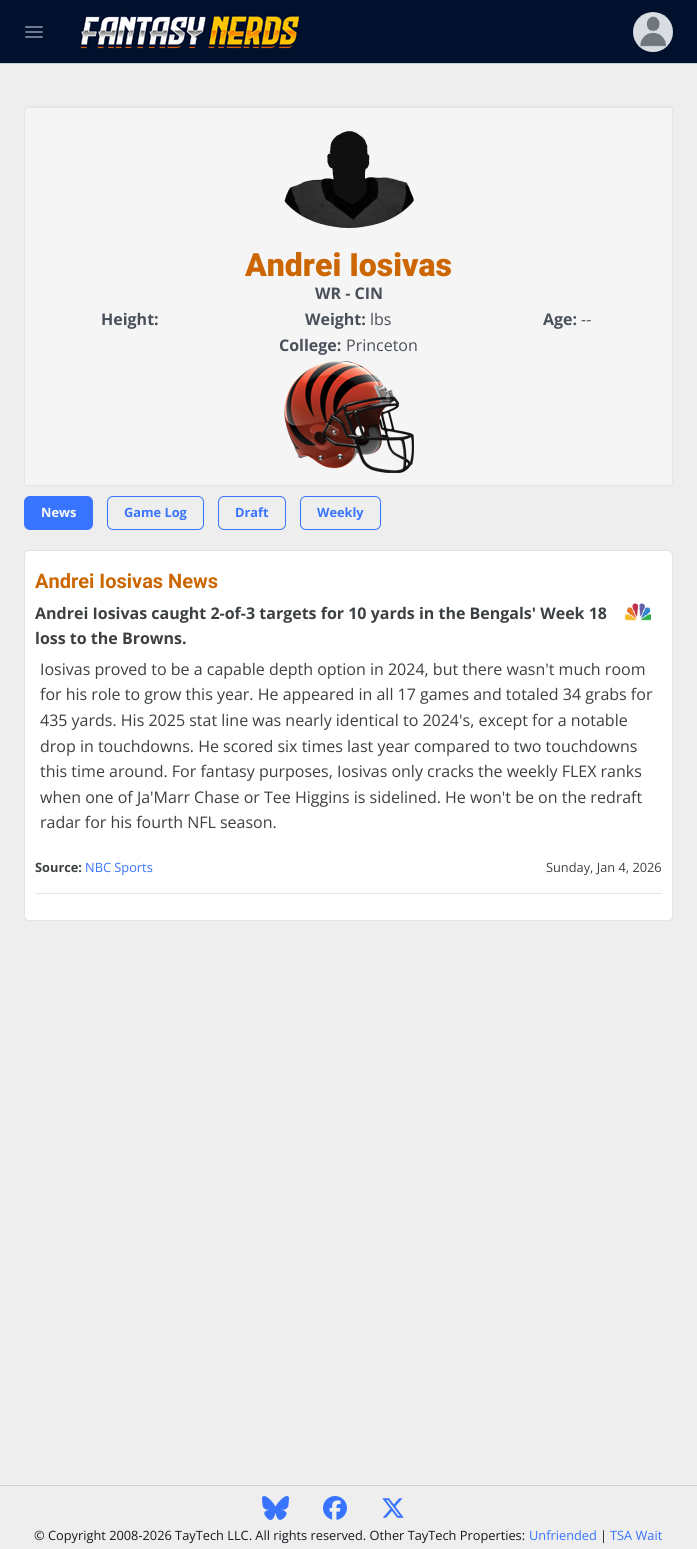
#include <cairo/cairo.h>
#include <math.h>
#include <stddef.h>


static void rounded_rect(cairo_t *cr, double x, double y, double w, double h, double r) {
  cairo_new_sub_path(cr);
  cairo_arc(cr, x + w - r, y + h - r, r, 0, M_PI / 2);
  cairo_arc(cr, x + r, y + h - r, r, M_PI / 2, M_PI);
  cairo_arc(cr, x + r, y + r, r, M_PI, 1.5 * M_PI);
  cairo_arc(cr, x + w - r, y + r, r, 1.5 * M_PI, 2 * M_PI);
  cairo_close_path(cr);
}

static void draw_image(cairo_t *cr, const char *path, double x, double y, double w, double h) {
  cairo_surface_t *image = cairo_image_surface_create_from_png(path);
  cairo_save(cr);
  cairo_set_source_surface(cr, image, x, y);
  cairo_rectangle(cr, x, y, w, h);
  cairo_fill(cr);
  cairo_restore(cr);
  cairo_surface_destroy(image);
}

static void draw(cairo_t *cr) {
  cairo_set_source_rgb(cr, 238 / 255.0, 238 / 255.0, 238 / 255.0);
  cairo_paint(cr);
  cairo_set_source_rgb(cr, 1 / 255.0, 16 / 255.0, 45 / 255.0);
  cairo_rectangle(cr, 0, 0, 697, 63);
  cairo_fill(cr);
  cairo_set_source_rgb(cr, 203 / 255.0, 208 / 255.0, 221 / 255.0);
  cairo_rectangle(cr, 0, 63, 697, 1);
  cairo_fill(cr);
  cairo_set_source_rgb(cr, 110 / 255.0, 120 / 255.0, 145 / 255.0);
  rounded_rect(cr, 25, 26, 18, 2, 1);
  cairo_fill(cr);
  rounded_rect(cr, 25, 31, 18, 2, 1);
  cairo_fill(cr);
  rounded_rect(cr, 25, 36, 18, 2, 1);
  cairo_fill(cr);
  draw_image(cr, "images/1.png", 80, 15, 220, 34);
  draw_image(cr, "images/2.png", 633, 12, 40, 40);
  cairo_set_source_rgb(cr, 245 / 255.0, 245 / 255.0, 245 / 255.0);
  rounded_rect(cr, 24, 106, 649, 380, 4);
  cairo_fill(cr);
  cairo_set_source_rgb(cr, 233 / 255.0, 233 / 255.0, 233 / 255.0);
  cairo_new_path(cr);
  cairo_move_to(cr, 28, 108);
  cairo_line_to(cr, 669, 108);
  cairo_curve_to(cr, 671, 108, 672, 109, 672, 111);
  cairo_line_to(cr, 672, 110);
  cairo_curve_to(cr, 672, 108, 671, 107, 669, 107);
  cairo_line_to(cr, 28, 107);
  cairo_curve_to(cr, 26, 107, 25, 108, 25, 110);
  cairo_line_to(cr, 25, 111);
  cairo_curve_to(cr, 25, 109, 26, 108, 28, 108);
  cairo_close_path(cr);
  cairo_fill(cr);
  rounded_rect(cr, 24.5, 106.5, 648, 379, 3.5);
  cairo_set_source_rgb(cr, 227 / 255.0, 227 / 255.0, 227 / 255.0);
  cairo_set_line_width(cr, 1);
  cairo_stroke(cr);
  draw_image(cr, "images/3.png", 284, 131, 130, 97);
  draw_image(cr, "images/4.png", 284, 361, 130, 112);
  cairo_set_source_rgb(cr, 56 / 255.0, 116 / 255.0, 1);
  rounded_rect(cr, 24, 496, 69, 34, 6);
  cairo_fill(cr);
  rounded_rect(cr, 107.5, 496.5, 96, 33, 5.5);
  cairo_stroke(cr);
  rounded_rect(cr, 218.5, 496.5, 67, 33, 5.5);
  cairo_stroke(cr);
  rounded_rect(cr, 300.5, 496.5, 80, 33, 5.5);
  cairo_stroke(cr);
  cairo_set_source_rgb(cr, 1, 1, 1);
  rounded_rect(cr, 24.5, 550.5, 648, 370, 4.5);
  cairo_fill_preserve(cr);
  cairo_set_source_rgb(cr, 227 / 255.0, 227 / 255.0, 227 / 255.0);
  cairo_stroke(cr);
  draw_image(cr, "images/5.png", 624, 603, 27, 18);
  cairo_set_source_rgb(cr, 227 / 255.0, 230 / 255.0, 237 / 255.0);
  cairo_rectangle(cr, 35, 893, 627, 1);
  cairo_fill(cr);
  cairo_set_source_rgb(cr, 203 / 255.0, 208 / 255.0, 221 / 255.0);
  cairo_rectangle(cr, 0, 1485, 697, 1);
  cairo_fill(cr);
  draw_image(cr, "images/6.png", 262, 1496, 27, 24);
  draw_image(cr, "images/7.png", 323, 1496, 24, 24);
  draw_image(cr, "images/8.png", 382, 1498, 22, 20);
  cairo_select_font_face(cr, "Roboto Black", CAIRO_FONT_SLANT_NORMAL, CAIRO_FONT_WEIGHT_NORMAL);
  cairo_set_font_size(cr, 32);
  cairo_set_source_rgb(cr, 204 / 255.0, 102 / 255.0, 0);
  cairo_move_to(cr, 245, 276);
  cairo_show_text(cr, "Andrei Iosivas");
  cairo_select_font_face(cr, "Open Sans", CAIRO_FONT_SLANT_NORMAL, CAIRO_FONT_WEIGHT_BOLD);
  cairo_set_font_size(cr, 16);
  cairo_set_source_rgb(cr, 73 / 255.0, 80 / 255.0, 90 / 255.0);
  cairo_move_to(cr, 315, 299);
  cairo_show_text(cr, "WR - CIN");
  cairo_move_to(cr, 101, 325);
  cairo_show_text(cr, "Height:");
  cairo_move_to(cr, 305, 325);
  cairo_show_text(cr, "Weight:");
  cairo_select_font_face(cr, "Open Sans", CAIRO_FONT_SLANT_NORMAL, CAIRO_FONT_WEIGHT_NORMAL);
  cairo_move_to(cr, 370, 325);
  cairo_show_text(cr, "lbs");
  cairo_select_font_face(cr, "Open Sans", CAIRO_FONT_SLANT_NORMAL, CAIRO_FONT_WEIGHT_BOLD);
  cairo_move_to(cr, 543, 325);
  cairo_show_text(cr, "Age:");
  cairo_select_font_face(cr, "Open Sans", CAIRO_FONT_SLANT_NORMAL, CAIRO_FONT_WEIGHT_NORMAL);
  cairo_move_to(cr, 581, 325);
  cairo_show_text(cr, "--");
  cairo_select_font_face(cr, "Open Sans", CAIRO_FONT_SLANT_NORMAL, CAIRO_FONT_WEIGHT_BOLD);
  cairo_move_to(cr, 279, 351);
  cairo_show_text(cr, "College:");
  cairo_select_font_face(cr, "Open Sans", CAIRO_FONT_SLANT_NORMAL, CAIRO_FONT_WEIGHT_NORMAL);
  cairo_move_to(cr, 346, 351);
  cairo_show_text(cr, "Princeton");
  cairo_select_font_face(cr, "Open Sans", CAIRO_FONT_SLANT_NORMAL, CAIRO_FONT_WEIGHT_BOLD);
  cairo_set_font_size(cr, 12.8);
  cairo_set_source_rgb(cr, 1, 1, 1);
  cairo_move_to(cr, 41, 517);
  cairo_show_text(cr, "News");
  cairo_set_source_rgb(cr, 56 / 255.0, 116 / 255.0, 1);
  cairo_move_to(cr, 124, 517);
  cairo_show_text(cr, "Game Log");
  cairo_move_to(cr, 235, 517);
  cairo_show_text(cr, "Draft");
  cairo_move_to(cr, 317, 517);
  cairo_show_text(cr, "Weekly");
  cairo_select_font_face(cr, "Roboto", CAIRO_FONT_SLANT_NORMAL, CAIRO_FONT_WEIGHT_BOLD);
  cairo_set_font_size(cr, 20);
  cairo_set_source_rgb(cr, 204 / 255.0, 102 / 255.0, 0);
  cairo_move_to(cr, 35, 588);
  cairo_show_text(cr, "Andrei Iosivas News");
  cairo_select_font_face(cr, "Open Sans", CAIRO_FONT_SLANT_NORMAL, CAIRO_FONT_WEIGHT_BOLD);
  cairo_set_font_size(cr, 16);
  cairo_set_source_rgb(cr, 60 / 255.0, 64 / 255.0, 66 / 255.0);
  cairo_move_to(cr, 35, 619);
  cairo_show_text(cr, "Andrei Iosivas caught 2-of-3 targets for 10 yards in the Bengals' Week 18");
  cairo_move_to(cr, 35, 644);
  cairo_show_text(cr, "loss to the Browns.");
  cairo_select_font_face(cr, "Open Sans", CAIRO_FONT_SLANT_NORMAL, CAIRO_FONT_WEIGHT_NORMAL);
  cairo_move_to(cr, 40, 675);
  cairo_show_text(cr, "Iosivas proved to be a capable depth option in 2024, but there wasn't much room");
  cairo_move_to(cr, 40, 700);
  cairo_show_text(cr, "for his role to grow this year. He appeared in all 17 games and totaled 34 grabs for");
  cairo_move_to(cr, 40, 726);
  cairo_show_text(cr, "435 yards. His 2025 stat line was nearly identical to 2024's, except for a notable");
  cairo_move_to(cr, 40, 752);
  cairo_show_text(cr, "drop in touchdowns. He scored six times last year compared to two touchdowns");
  cairo_move_to(cr, 40, 777);
  cairo_show_text(cr, "this time around. For fantasy purposes, Iosivas only cracks the weekly FLEX ranks");
  cairo_move_to(cr, 40, 803);
  cairo_show_text(cr, "when one of Ja'Marr Chase or Tee Higgins is sidelined. He won't be on the redraft");
  cairo_move_to(cr, 40, 828);
  cairo_show_text(cr, "radar for his fourth NFL season.");
  cairo_select_font_face(cr, "Open Sans", CAIRO_FONT_SLANT_NORMAL, CAIRO_FONT_WEIGHT_BOLD);
  cairo_set_font_size(cr, 12.8);
  cairo_move_to(cr, 35, 872);
  cairo_show_text(cr, "Source:");
  cairo_select_font_face(cr, "Open Sans", CAIRO_FONT_SLANT_NORMAL, CAIRO_FONT_WEIGHT_NORMAL);
  cairo_set_source_rgb(cr, 56 / 255.0, 116 / 255.0, 1);
  cairo_move_to(cr, 85, 872);
  cairo_show_text(cr, "NBC Sports");
  cairo_set_source_rgb(cr, 60 / 255.0, 64 / 255.0, 66 / 255.0);
  cairo_move_to(cr, 546, 872);
  cairo_show_text(cr, "Sunday, Jan 4, 2026");
  cairo_set_source_rgb(cr, 22 / 255.0, 25 / 255.0, 30 / 255.0);
  cairo_move_to(cr, 34, 1540);
  cairo_show_text(cr, "© Copyright 2008-2026 TayTech LLC. All rights reserved. Other TayTech Properties:");
  cairo_set_source_rgb(cr, 56 / 255.0, 116 / 255.0, 1);
  cairo_move_to(cr, 529, 1540);
  cairo_show_text(cr, "Unfriended");
  cairo_set_source_rgb(cr, 22 / 255.0, 25 / 255.0, 30 / 255.0);
  cairo_move_to(cr, 600, 1540);
  cairo_show_text(cr, "|");
  cairo_set_source_rgb(cr, 56 / 255.0, 116 / 255.0, 1);
  cairo_move_to(cr, 610, 1540);
  cairo_show_text(cr, "TSA Wait");
}

int main(void) {
  cairo_surface_t *surface = cairo_image_surface_create(CAIRO_FORMAT_RGB24, 697, 1549);
  cairo_t *cr = cairo_create(surface);
  cairo_font_options_t *options = cairo_font_options_create();
  cairo_font_options_set_hint_metrics(options, CAIRO_HINT_METRICS_OFF);
  cairo_font_options_set_hint_style(options, CAIRO_HINT_STYLE_NONE);
  cairo_set_font_options(cr, options);
  cairo_set_miter_limit(cr, 4);
  draw(cr);
  cairo_surface_write_to_png(surface, "out.png");
  cairo_font_options_destroy(options);
  cairo_destroy(cr);
  cairo_surface_destroy(surface);
  return 0;
}
